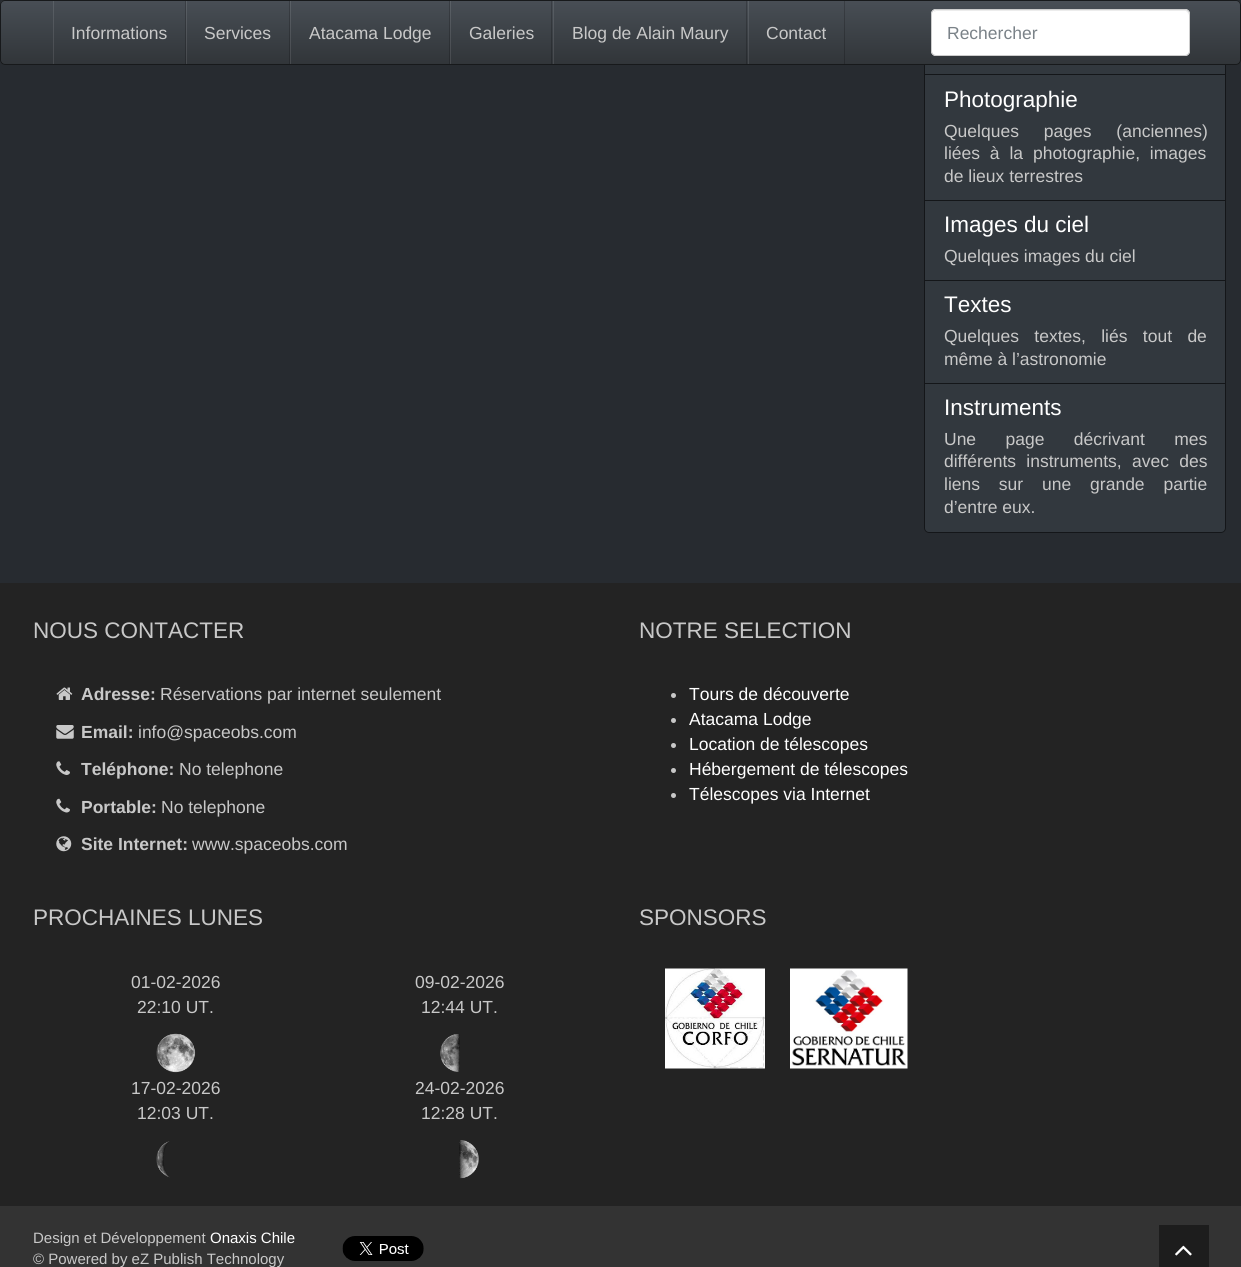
#include <cairo/cairo.h>
#include <math.h>
#include <stddef.h>


static void draw_spaced(cairo_t *cr, double x, double y, const char *s, double letter, double word) {
  cairo_move_to(cr, x, y);
  while (*s) {
    char ch[5] = {0};
    int n = 0;
    do ch[n++] = *s++; while ((*s & 0xC0) == 0x80);
    cairo_show_text(cr, ch);
    cairo_rel_move_to(cr, letter + word * (*ch == ' '), 0);
  }
}

static void rounded_rect(cairo_t *cr, double x, double y, double w, double h, double r) {
  cairo_new_sub_path(cr);
  cairo_arc(cr, x + w - r, y + h - r, r, 0, M_PI / 2);
  cairo_arc(cr, x + r, y + h - r, r, M_PI / 2, M_PI);
  cairo_arc(cr, x + r, y + r, r, M_PI, 1.5 * M_PI);
  cairo_arc(cr, x + w - r, y + r, r, 1.5 * M_PI, 2 * M_PI);
  cairo_close_path(cr);
}

static void draw_image(cairo_t *cr, const char *path, double x, double y, double w, double h) {
  cairo_surface_t *image = cairo_image_surface_create_from_png(path);
  cairo_save(cr);
  cairo_set_source_surface(cr, image, x, y);
  cairo_rectangle(cr, x, y, w, h);
  cairo_fill(cr);
  cairo_restore(cr);
  cairo_surface_destroy(image);
}

static void draw(cairo_t *cr) {
  cairo_pattern_t *gradient;
  cairo_set_source_rgb(cr, 39 / 255.0, 43 / 255.0, 48 / 255.0);
  cairo_paint(cr);
  cairo_set_source_rgb(cr, 50 / 255.0, 56 / 255.0, 62 / 255.0);
  cairo_rectangle(cr, 925, 65, 300, 9);
  cairo_fill(cr);
  cairo_rectangle(cr, 924.5, -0.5, 301, 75);
  cairo_set_source_rgb(cr, 20 / 255.0, 22 / 255.0, 25 / 255.0);
  cairo_set_line_width(cr, 1);
  cairo_stroke(cr);
  cairo_set_source_rgb(cr, 58 / 255.0, 63 / 255.0, 68 / 255.0);
  rounded_rect(cr, 0, 0, 1241, 65, 5);
  cairo_fill(cr);
  cairo_save(cr);
  rounded_rect(cr, 0, 0, 1241, 65, 5);
  cairo_clip(cr);
  gradient = cairo_pattern_create_linear(621, 1.2, 621, 64);
  cairo_pattern_add_color_stop_rgba(gradient, 0, 72 / 255.0, 78 / 255.0, 85 / 255.0, 1);
  cairo_pattern_add_color_stop_rgba(gradient, 0.6, 58 / 255.0, 63 / 255.0, 68 / 255.0, 1);
  cairo_pattern_add_color_stop_rgba(gradient, 1, 49 / 255.0, 53 / 255.0, 57 / 255.0, 1);
  cairo_set_source(cr, gradient);
  cairo_pattern_destroy(gradient);
  cairo_rectangle(cr, 1, 1, 1239, 63);
  cairo_fill(cr);
  cairo_restore(cr);
  gradient = cairo_pattern_create_linear(621, 1.2, 621, 64);
  cairo_pattern_add_color_stop_rgba(gradient, 0, 90 / 255.0, 96 / 255.0, 102 / 255.0, 1);
  cairo_pattern_add_color_stop_rgba(gradient, 0.6, 78 / 255.0, 82 / 255.0, 87 / 255.0, 1);
  cairo_pattern_add_color_stop_rgba(gradient, 1, 70 / 255.0, 73 / 255.0, 77 / 255.0, 1);
  cairo_set_source(cr, gradient);
  cairo_pattern_destroy(gradient);
  cairo_rectangle(cr, 748, 1, 1, 63);
  cairo_fill(cr);
  gradient = cairo_pattern_create_linear(621, 1.2, 621, 64);
  cairo_pattern_add_color_stop_rgba(gradient, 0, 58 / 255.0, 62 / 255.0, 68 / 255.0, 1);
  cairo_pattern_add_color_stop_rgba(gradient, 0.6, 46 / 255.0, 50 / 255.0, 54 / 255.0, 1);
  cairo_pattern_add_color_stop_rgba(gradient, 1, 39 / 255.0, 42 / 255.0, 46 / 255.0, 1);
  cairo_set_source(cr, gradient);
  cairo_pattern_destroy(gradient);
  cairo_rectangle(cr, 844, 1, 1, 63);
  cairo_fill(cr);
  gradient = cairo_pattern_create_linear(621, 1.2, 621, 64);
  cairo_pattern_add_color_stop_rgba(gradient, 0, 90 / 255.0, 96 / 255.0, 102 / 255.0, 1);
  cairo_pattern_add_color_stop_rgba(gradient, 0.6, 78 / 255.0, 82 / 255.0, 87 / 255.0, 1);
  cairo_pattern_add_color_stop_rgba(gradient, 1, 70 / 255.0, 73 / 255.0, 77 / 255.0, 1);
  cairo_set_source(cr, gradient);
  cairo_pattern_destroy(gradient);
  cairo_rectangle(cr, 553, 1, 1, 63);
  cairo_fill(cr);
  gradient = cairo_pattern_create_linear(621, 1.2, 621, 64);
  cairo_pattern_add_color_stop_rgba(gradient, 0, 58 / 255.0, 62 / 255.0, 68 / 255.0, 1);
  cairo_pattern_add_color_stop_rgba(gradient, 0.6, 46 / 255.0, 50 / 255.0, 54 / 255.0, 1);
  cairo_pattern_add_color_stop_rgba(gradient, 1, 39 / 255.0, 42 / 255.0, 46 / 255.0, 1);
  cairo_set_source(cr, gradient);
  cairo_pattern_destroy(gradient);
  cairo_rectangle(cr, 746, 1, 1, 63);
  cairo_fill(cr);
  gradient = cairo_pattern_create_linear(621, 1.2, 621, 64);
  cairo_pattern_add_color_stop_rgba(gradient, 0, 90 / 255.0, 96 / 255.0, 102 / 255.0, 1);
  cairo_pattern_add_color_stop_rgba(gradient, 0.6, 78 / 255.0, 82 / 255.0, 87 / 255.0, 1);
  cairo_pattern_add_color_stop_rgba(gradient, 1, 70 / 255.0, 73 / 255.0, 77 / 255.0, 1);
  cairo_set_source(cr, gradient);
  cairo_pattern_destroy(gradient);
  cairo_rectangle(cr, 450, 1, 1, 63);
  cairo_fill(cr);
  gradient = cairo_pattern_create_linear(621, 1.2, 621, 64);
  cairo_pattern_add_color_stop_rgba(gradient, 0, 58 / 255.0, 62 / 255.0, 68 / 255.0, 1);
  cairo_pattern_add_color_stop_rgba(gradient, 0.6, 46 / 255.0, 50 / 255.0, 54 / 255.0, 1);
  cairo_pattern_add_color_stop_rgba(gradient, 1, 39 / 255.0, 42 / 255.0, 46 / 255.0, 1);
  cairo_set_source(cr, gradient);
  cairo_pattern_destroy(gradient);
  cairo_rectangle(cr, 551, 1, 1, 63);
  cairo_fill(cr);
  gradient = cairo_pattern_create_linear(621, 1.2, 621, 64);
  cairo_pattern_add_color_stop_rgba(gradient, 0, 90 / 255.0, 96 / 255.0, 102 / 255.0, 1);
  cairo_pattern_add_color_stop_rgba(gradient, 0.6, 78 / 255.0, 82 / 255.0, 87 / 255.0, 1);
  cairo_pattern_add_color_stop_rgba(gradient, 1, 70 / 255.0, 73 / 255.0, 77 / 255.0, 1);
  cairo_set_source(cr, gradient);
  cairo_pattern_destroy(gradient);
  cairo_rectangle(cr, 290, 1, 1, 63);
  cairo_fill(cr);
  gradient = cairo_pattern_create_linear(621, 1.2, 621, 64);
  cairo_pattern_add_color_stop_rgba(gradient, 0, 58 / 255.0, 62 / 255.0, 68 / 255.0, 1);
  cairo_pattern_add_color_stop_rgba(gradient, 0.6, 46 / 255.0, 50 / 255.0, 54 / 255.0, 1);
  cairo_pattern_add_color_stop_rgba(gradient, 1, 39 / 255.0, 42 / 255.0, 46 / 255.0, 1);
  cairo_set_source(cr, gradient);
  cairo_pattern_destroy(gradient);
  cairo_rectangle(cr, 449, 1, 1, 63);
  cairo_fill(cr);
  gradient = cairo_pattern_create_linear(621, 1.2, 621, 64);
  cairo_pattern_add_color_stop_rgba(gradient, 0, 90 / 255.0, 96 / 255.0, 102 / 255.0, 1);
  cairo_pattern_add_color_stop_rgba(gradient, 0.6, 78 / 255.0, 82 / 255.0, 87 / 255.0, 1);
  cairo_pattern_add_color_stop_rgba(gradient, 1, 70 / 255.0, 73 / 255.0, 77 / 255.0, 1);
  cairo_set_source(cr, gradient);
  cairo_pattern_destroy(gradient);
  cairo_rectangle(cr, 186, 1, 1, 63);
  cairo_fill(cr);
  gradient = cairo_pattern_create_linear(621, 1.2, 621, 64);
  cairo_pattern_add_color_stop_rgba(gradient, 0, 58 / 255.0, 62 / 255.0, 68 / 255.0, 1);
  cairo_pattern_add_color_stop_rgba(gradient, 0.6, 46 / 255.0, 50 / 255.0, 54 / 255.0, 1);
  cairo_pattern_add_color_stop_rgba(gradient, 1, 39 / 255.0, 42 / 255.0, 46 / 255.0, 1);
  cairo_set_source(cr, gradient);
  cairo_pattern_destroy(gradient);
  cairo_rectangle(cr, 289, 1, 1, 63);
  cairo_fill(cr);
  gradient = cairo_pattern_create_linear(621, 1.2, 621, 64);
  cairo_pattern_add_color_stop_rgba(gradient, 0, 90 / 255.0, 96 / 255.0, 102 / 255.0, 1);
  cairo_pattern_add_color_stop_rgba(gradient, 0.6, 78 / 255.0, 82 / 255.0, 87 / 255.0, 1);
  cairo_pattern_add_color_stop_rgba(gradient, 1, 70 / 255.0, 73 / 255.0, 77 / 255.0, 1);
  cairo_set_source(cr, gradient);
  cairo_pattern_destroy(gradient);
  cairo_rectangle(cr, 53, 1, 1, 63);
  cairo_fill(cr);
  gradient = cairo_pattern_create_linear(621, 1.2, 621, 64);
  cairo_pattern_add_color_stop_rgba(gradient, 0, 58 / 255.0, 62 / 255.0, 68 / 255.0, 1);
  cairo_pattern_add_color_stop_rgba(gradient, 0.6, 46 / 255.0, 50 / 255.0, 54 / 255.0, 1);
  cairo_pattern_add_color_stop_rgba(gradient, 1, 39 / 255.0, 42 / 255.0, 46 / 255.0, 1);
  cairo_set_source(cr, gradient);
  cairo_pattern_destroy(gradient);
  cairo_rectangle(cr, 185, 1, 1, 63);
  cairo_fill(cr);
  rounded_rect(cr, 0.5, 0.5, 1240, 64, 4.5);
  cairo_set_source_rgba(cr, 0, 0, 0, 0.6);
  cairo_stroke(cr);
  cairo_set_source_rgb(cr, 1, 1, 1);
  rounded_rect(cr, 931, 9, 259, 47, 5);
  cairo_fill(cr);
  cairo_set_source_rgb(cr, 236 / 255.0, 236 / 255.0, 236 / 255.0);
  cairo_new_path(cr);
  cairo_move_to(cr, 936, 11);
  cairo_line_to(cr, 1186, 11);
  cairo_line_to(cr, 1188, 13);
  cairo_line_to(cr, 1189, 15);
  cairo_line_to(cr, 1189, 14);
  cairo_curve_to(cr, 1189, 12, 1187, 10, 1185, 10);
  cairo_line_to(cr, 937, 10);
  cairo_curve_to(cr, 936, 10, 934, 11, 934, 12);
  cairo_close_path(cr);
  cairo_fill(cr);
  rounded_rect(cr, 931.5, 9.5, 258, 46, 4.5);
  cairo_set_source_rgb(cr, 204 / 255.0, 204 / 255.0, 204 / 255.0);
  cairo_stroke(cr);
  cairo_set_source_rgb(cr, 50 / 255.0, 56 / 255.0, 62 / 255.0);
  cairo_rectangle(cr, 924.5, 74.5, 301, 126);
  cairo_fill_preserve(cr);
  cairo_set_source_rgb(cr, 20 / 255.0, 22 / 255.0, 25 / 255.0);
  cairo_stroke(cr);
  cairo_set_source_rgb(cr, 50 / 255.0, 56 / 255.0, 62 / 255.0);
  cairo_rectangle(cr, 924.5, 200.5, 301, 80);
  cairo_fill_preserve(cr);
  cairo_set_source_rgb(cr, 20 / 255.0, 22 / 255.0, 25 / 255.0);
  cairo_stroke(cr);
  cairo_set_source_rgb(cr, 50 / 255.0, 56 / 255.0, 62 / 255.0);
  cairo_rectangle(cr, 924.5, 280.5, 301, 103);
  cairo_fill_preserve(cr);
  cairo_set_source_rgb(cr, 20 / 255.0, 22 / 255.0, 25 / 255.0);
  cairo_stroke(cr);
  cairo_set_source_rgb(cr, 50 / 255.0, 56 / 255.0, 62 / 255.0);
  cairo_new_path(cr);
  cairo_move_to(cr, 924, 383);
  cairo_line_to(cr, 1226, 383);
  cairo_line_to(cr, 1226, 528);
  cairo_curve_to(cr, 1226, 531, 1224, 533, 1221, 533);
  cairo_line_to(cr, 929, 533);
  cairo_curve_to(cr, 926, 533, 924, 531, 924, 528);
  cairo_close_path(cr);
  cairo_fill(cr);
  cairo_new_path(cr);
  cairo_move_to(cr, 924.5, 383.5);
  cairo_line_to(cr, 1225.5, 383.5);
  cairo_line_to(cr, 1225.5, 528);
  cairo_curve_to(cr, 1225.5, 530.5, 1223.5, 532.5, 1221, 532.5);
  cairo_line_to(cr, 929, 532.5);
  cairo_curve_to(cr, 926.5, 532.5, 924.5, 530.5, 924.5, 528);
  cairo_close_path(cr);
  cairo_set_source_rgba(cr, 0, 0, 0, 0.6);
  cairo_stroke(cr);
  cairo_set_source_rgb(cr, 35 / 255.0, 35 / 255.0, 35 / 255.0);
  cairo_rectangle(cr, 0, 583, 1241, 623);
  cairo_fill(cr);
  draw_image(cr, "images/1.png", 56, 687, 17, 13);
  draw_image(cr, "images/2.png", 56, 725, 18, 14);
  draw_image(cr, "images/3.png", 56, 761, 14, 14);
  draw_image(cr, "images/4.png", 56, 798, 14, 15);
  draw_image(cr, "images/5.png", 56, 836, 16, 16);
  cairo_set_source_rgb(cr, 200 / 255.0, 200 / 255.0, 200 / 255.0);
  cairo_arc(cr, 673.5, 695.5, 2.5, 0, 2 * M_PI);
  cairo_fill(cr);
  cairo_arc(cr, 673.5, 720.5, 2.5, 0, 2 * M_PI);
  cairo_fill(cr);
  cairo_arc(cr, 673.5, 745.5, 2.5, 0, 2 * M_PI);
  cairo_fill(cr);
  cairo_arc(cr, 673.5, 770.5, 2.5, 0, 2 * M_PI);
  cairo_fill(cr);
  cairo_arc(cr, 673.5, 795.5, 2.5, 0, 2 * M_PI);
  cairo_fill(cr);
  draw_image(cr, "images/6.png", 156, 1033, 40, 40);
  draw_image(cr, "images/7.png", 440, 1034, 20, 38);
  draw_image(cr, "images/8.png", 156, 1141, 14, 37);
  draw_image(cr, "images/9.png", 459, 1140, 20, 39);
  draw_image(cr, "images/10.png", 665, 968, 100, 101);
  draw_image(cr, "images/11.png", 790, 968, 118, 101);
  cairo_set_source_rgb(cr, 51 / 255.0, 51 / 255.0, 51 / 255.0);
  cairo_rectangle(cr, 0, 1206, 1241, 61);
  cairo_fill(cr);
  draw_image(cr, "images/12.png", 342, 1236, 82, 25);
  cairo_set_source_rgb(cr, 29 / 255.0, 29 / 255.0, 29 / 255.0);
  cairo_rectangle(cr, 1159, 1225, 50, 42);
  cairo_fill(cr);
  draw_image(cr, "images/13.png", 1175, 1245, 17, 11);
  cairo_select_font_face(cr, "Liberation Sans", CAIRO_FONT_SLANT_NORMAL, CAIRO_FONT_WEIGHT_NORMAL);
  cairo_set_font_size(cr, 17.5);
  cairo_set_source_rgb(cr, 200 / 255.0, 200 / 255.0, 200 / 255.0);
  cairo_move_to(cr, 71, 39);
  cairo_show_text(cr, "Informations");
  cairo_move_to(cr, 204, 39);
  cairo_show_text(cr, "Services");
  cairo_move_to(cr, 309, 39);
  cairo_show_text(cr, "Atacama Lodge");
  cairo_move_to(cr, 469, 39);
  cairo_show_text(cr, "Galeries");
  cairo_move_to(cr, 572, 39);
  cairo_show_text(cr, "Blog de Alain Maury");
  cairo_move_to(cr, 766, 39);
  cairo_show_text(cr, "Contact");
  cairo_set_source_rgb(cr, 122 / 255.0, 130 / 255.0, 136 / 255.0);
  cairo_move_to(cr, 947, 39);
  cairo_show_text(cr, "Rechercher");
  cairo_set_font_size(cr, 22.5);
  cairo_set_source_rgb(cr, 1, 1, 1);
  cairo_move_to(cr, 944, 107);
  cairo_show_text(cr, "Photographie");
  cairo_set_font_size(cr, 17.5);
  cairo_set_source_rgb(cr, 200 / 255.0, 200 / 255.0, 200 / 255.0);
  draw_spaced(cr, 944, 137, "Quelques pages (anciennes)", 0, 20);
  draw_spaced(cr, 944, 159, "liées à la photographie, images", 0, 5);
  cairo_move_to(cr, 944, 182);
  cairo_show_text(cr, "de lieux terrestres");
  cairo_set_font_size(cr, 22.5);
  cairo_set_source_rgb(cr, 1, 1, 1);
  cairo_move_to(cr, 944, 232);
  cairo_show_text(cr, "Images du ciel");
  cairo_set_font_size(cr, 17.5);
  cairo_set_source_rgb(cr, 200 / 255.0, 200 / 255.0, 200 / 255.0);
  cairo_move_to(cr, 944, 262);
  cairo_show_text(cr, "Quelques images du ciel");
  cairo_set_font_size(cr, 22.5);
  cairo_set_source_rgb(cr, 1, 1, 1);
  cairo_move_to(cr, 944, 312);
  cairo_show_text(cr, "Textes");
  cairo_set_font_size(cr, 17.5);
  cairo_set_source_rgb(cr, 200 / 255.0, 200 / 255.0, 200 / 255.0);
  draw_spaced(cr, 944, 342, "Quelques textes, liés tout de", 0, 10.5);
  cairo_move_to(cr, 944, 365);
  cairo_show_text(cr, "même à l’astronomie");
  cairo_set_font_size(cr, 22.5);
  cairo_set_source_rgb(cr, 1, 1, 1);
  cairo_move_to(cr, 944, 415);
  cairo_show_text(cr, "Instruments");
  cairo_set_font_size(cr, 17.5);
  cairo_set_source_rgb(cr, 200 / 255.0, 200 / 255.0, 200 / 255.0);
  draw_spaced(cr, 944, 445, "Une page décrivant mes", 0, 24.5);
  draw_spaced(cr, 944, 467, "différents instruments, avec des", 0, 5.5);
  draw_spaced(cr, 944, 490, "liens sur une grande partie", 0, 14);
  cairo_move_to(cr, 944, 513);
  cairo_show_text(cr, "d’entre eux.");
  cairo_set_font_size(cr, 22.5);
  cairo_move_to(cr, 33, 638);
  cairo_show_text(cr, "NOUS CONTACTER");
  cairo_select_font_face(cr, "Liberation Sans", CAIRO_FONT_SLANT_NORMAL, CAIRO_FONT_WEIGHT_BOLD);
  cairo_set_font_size(cr, 17.5);
  cairo_move_to(cr, 81, 700);
  cairo_show_text(cr, "Adresse:");
  cairo_select_font_face(cr, "Liberation Sans", CAIRO_FONT_SLANT_NORMAL, CAIRO_FONT_WEIGHT_NORMAL);
  cairo_move_to(cr, 160, 700);
  cairo_show_text(cr, "Réservations par internet seulement");
  cairo_select_font_face(cr, "Liberation Sans", CAIRO_FONT_SLANT_NORMAL, CAIRO_FONT_WEIGHT_BOLD);
  cairo_move_to(cr, 81, 738);
  cairo_show_text(cr, "Email:");
  cairo_select_font_face(cr, "Liberation Sans", CAIRO_FONT_SLANT_NORMAL, CAIRO_FONT_WEIGHT_NORMAL);
  cairo_move_to(cr, 138, 738);
  cairo_show_text(cr, "info@spaceobs.com");
  cairo_select_font_face(cr, "Liberation Sans", CAIRO_FONT_SLANT_NORMAL, CAIRO_FONT_WEIGHT_BOLD);
  cairo_move_to(cr, 81, 775);
  cairo_show_text(cr, "Teléphone:");
  cairo_select_font_face(cr, "Liberation Sans", CAIRO_FONT_SLANT_NORMAL, CAIRO_FONT_WEIGHT_NORMAL);
  cairo_move_to(cr, 179, 775);
  cairo_show_text(cr, "No telephone");
  cairo_select_font_face(cr, "Liberation Sans", CAIRO_FONT_SLANT_NORMAL, CAIRO_FONT_WEIGHT_BOLD);
  cairo_move_to(cr, 81, 813);
  cairo_show_text(cr, "Portable:");
  cairo_select_font_face(cr, "Liberation Sans", CAIRO_FONT_SLANT_NORMAL, CAIRO_FONT_WEIGHT_NORMAL);
  cairo_move_to(cr, 161, 813);
  cairo_show_text(cr, "No telephone");
  cairo_select_font_face(cr, "Liberation Sans", CAIRO_FONT_SLANT_NORMAL, CAIRO_FONT_WEIGHT_BOLD);
  cairo_move_to(cr, 81, 850);
  cairo_show_text(cr, "Site Internet:");
  cairo_select_font_face(cr, "Liberation Sans", CAIRO_FONT_SLANT_NORMAL, CAIRO_FONT_WEIGHT_NORMAL);
  cairo_move_to(cr, 192, 850);
  cairo_show_text(cr, "www.spaceobs.com");
  cairo_set_font_size(cr, 22.5);
  cairo_move_to(cr, 639, 638);
  cairo_show_text(cr, "NOTRE SELECTION");
  cairo_set_font_size(cr, 17.5);
  cairo_set_source_rgb(cr, 1, 1, 1);
  cairo_move_to(cr, 689, 700);
  cairo_show_text(cr, "Tours de découverte");
  cairo_move_to(cr, 689, 725);
  cairo_show_text(cr, "Atacama Lodge");
  cairo_move_to(cr, 689, 750);
  cairo_show_text(cr, "Location de télescopes");
  cairo_move_to(cr, 689, 775);
  cairo_show_text(cr, "Hébergement de télescopes");
  cairo_move_to(cr, 689, 800);
  cairo_show_text(cr, "Télescopes via Internet");
  cairo_set_font_size(cr, 22.5);
  cairo_set_source_rgb(cr, 200 / 255.0, 200 / 255.0, 200 / 255.0);
  cairo_move_to(cr, 33, 925);
  cairo_show_text(cr, "PROCHAINES LUNES");
  cairo_set_font_size(cr, 17.5);
  cairo_move_to(cr, 131, 988);
  cairo_show_text(cr, "01-02-2026");
  cairo_move_to(cr, 137, 1013);
  cairo_show_text(cr, "22:10 UT.");
  cairo_move_to(cr, 415, 988);
  cairo_show_text(cr, "09-02-2026");
  cairo_move_to(cr, 421, 1013);
  cairo_show_text(cr, "12:44 UT.");
  cairo_move_to(cr, 131, 1094);
  cairo_show_text(cr, "17-02-2026");
  cairo_move_to(cr, 137, 1119);
  cairo_show_text(cr, "12:03 UT.");
  cairo_move_to(cr, 415, 1094);
  cairo_show_text(cr, "24-02-2026");
  cairo_move_to(cr, 421, 1119);
  cairo_show_text(cr, "12:28 UT.");
  cairo_set_font_size(cr, 22.5);
  cairo_move_to(cr, 639, 925);
  cairo_show_text(cr, "SPONSORS");
  cairo_set_font_size(cr, 15);
  cairo_move_to(cr, 33, 1243);
  cairo_show_text(cr, "Design et Développement");
  cairo_set_source_rgb(cr, 1, 1, 1);
  cairo_move_to(cr, 210, 1243);
  cairo_show_text(cr, "Onaxis Chile");
  cairo_set_source_rgb(cr, 200 / 255.0, 200 / 255.0, 200 / 255.0);
  cairo_move_to(cr, 33, 1264);
  cairo_show_text(cr, "© Powered by eZ Publish Technology");
}

int main(void) {
  cairo_surface_t *surface = cairo_image_surface_create(CAIRO_FORMAT_RGB24, 1241, 1267);
  cairo_t *cr = cairo_create(surface);
  cairo_font_options_t *options = cairo_font_options_create();
  cairo_font_options_set_hint_metrics(options, CAIRO_HINT_METRICS_OFF);
  cairo_font_options_set_hint_style(options, CAIRO_HINT_STYLE_NONE);
  cairo_set_font_options(cr, options);
  cairo_set_miter_limit(cr, 4);
  draw(cr);
  cairo_surface_write_to_png(surface, "out.png");
  cairo_font_options_destroy(options);
  cairo_destroy(cr);
  cairo_surface_destroy(surface);
  return 0;
}
